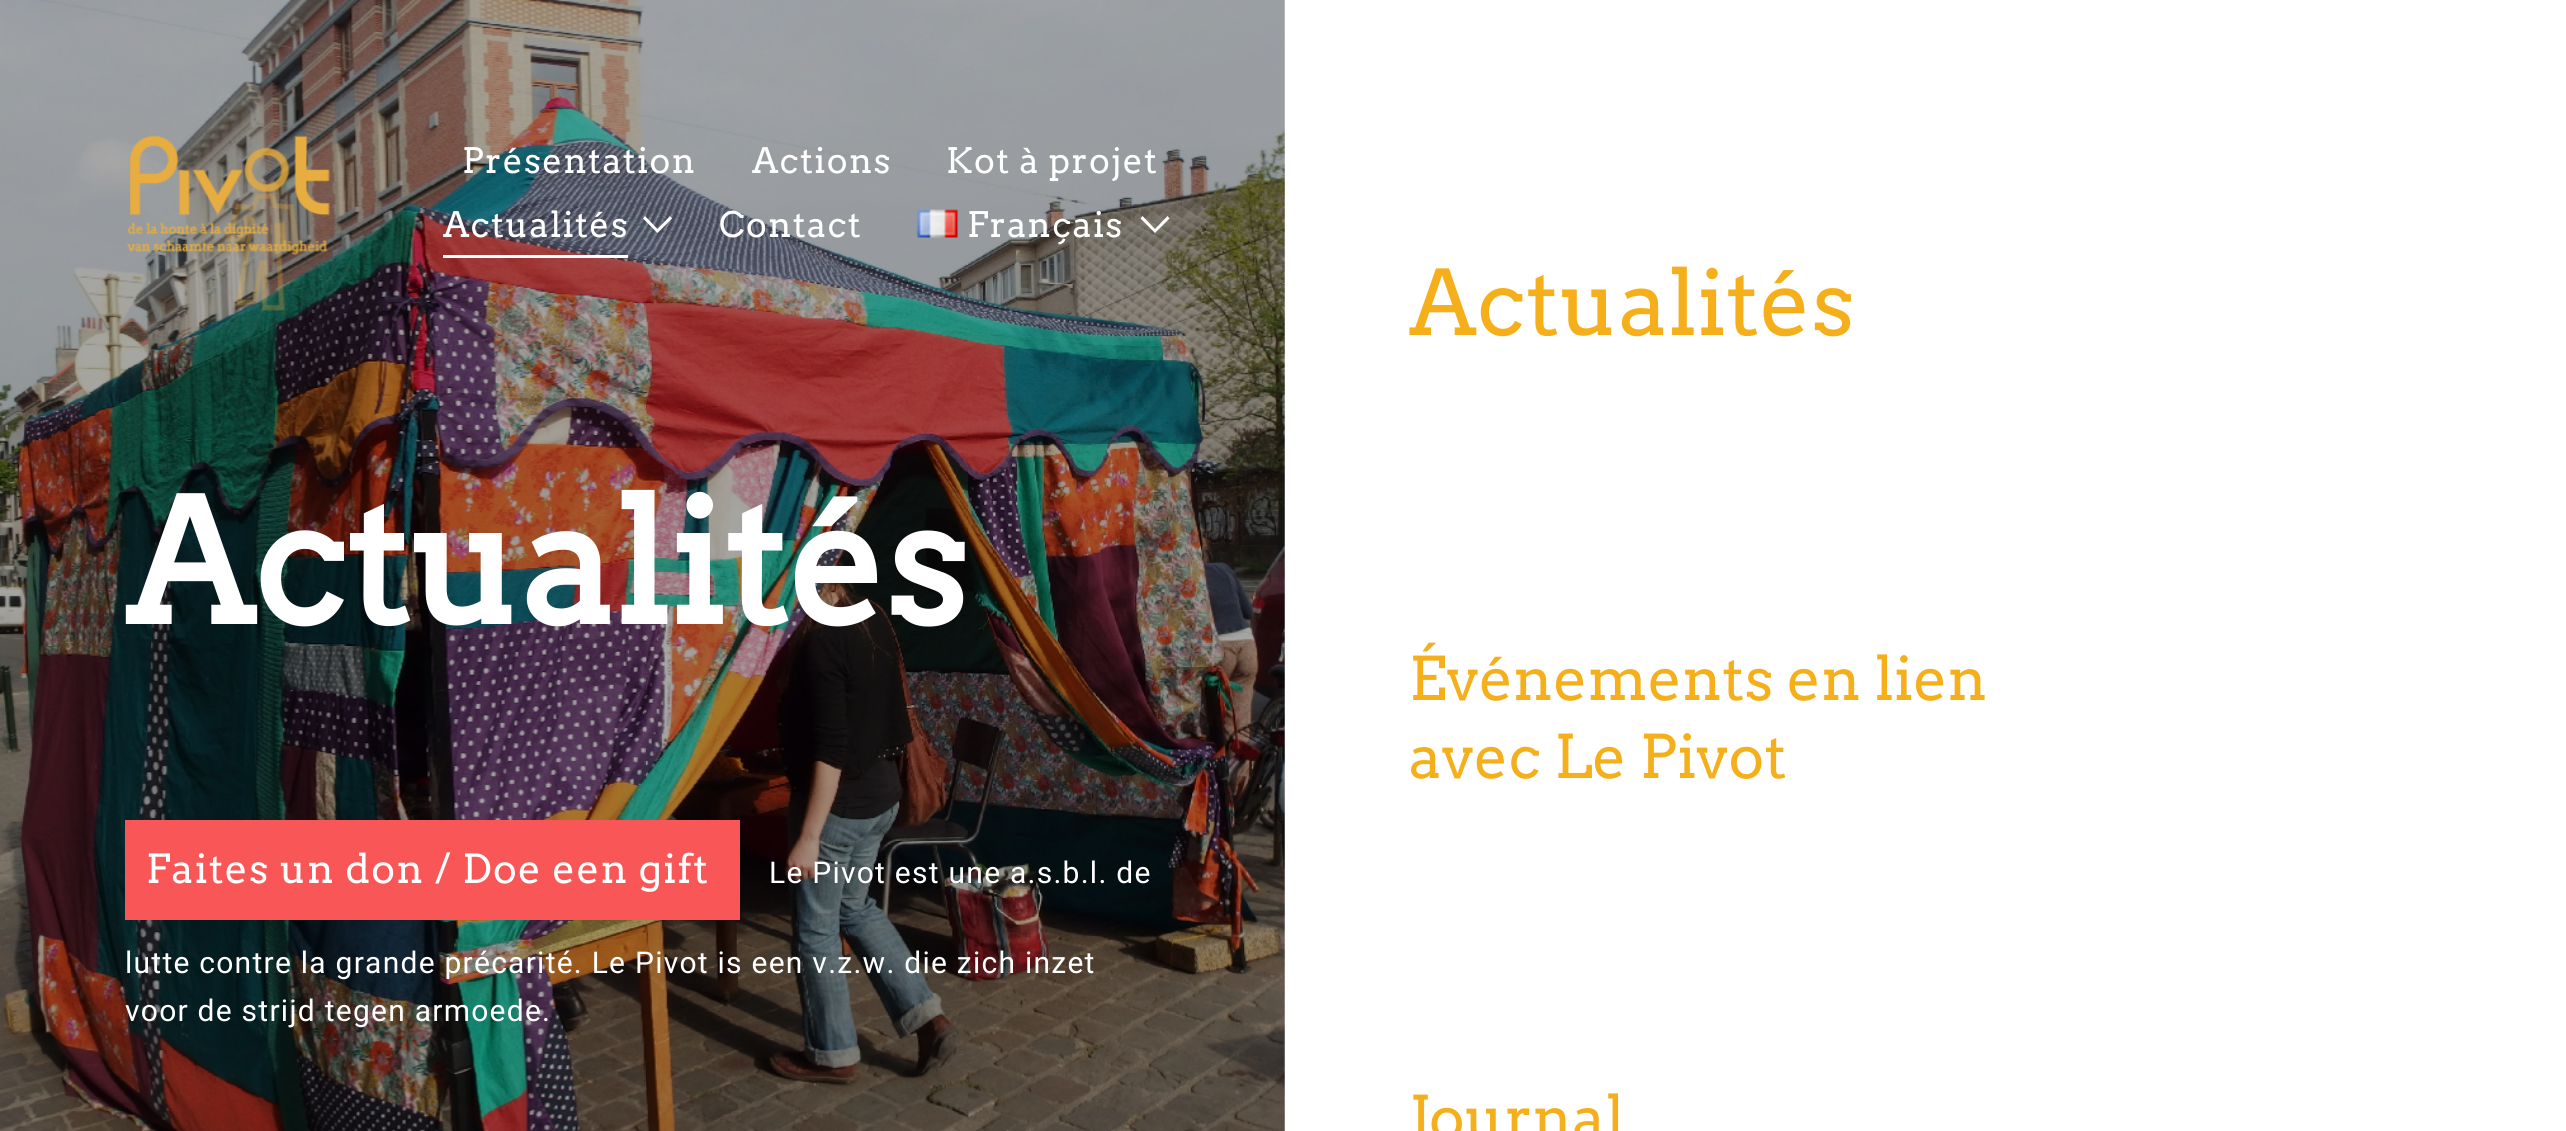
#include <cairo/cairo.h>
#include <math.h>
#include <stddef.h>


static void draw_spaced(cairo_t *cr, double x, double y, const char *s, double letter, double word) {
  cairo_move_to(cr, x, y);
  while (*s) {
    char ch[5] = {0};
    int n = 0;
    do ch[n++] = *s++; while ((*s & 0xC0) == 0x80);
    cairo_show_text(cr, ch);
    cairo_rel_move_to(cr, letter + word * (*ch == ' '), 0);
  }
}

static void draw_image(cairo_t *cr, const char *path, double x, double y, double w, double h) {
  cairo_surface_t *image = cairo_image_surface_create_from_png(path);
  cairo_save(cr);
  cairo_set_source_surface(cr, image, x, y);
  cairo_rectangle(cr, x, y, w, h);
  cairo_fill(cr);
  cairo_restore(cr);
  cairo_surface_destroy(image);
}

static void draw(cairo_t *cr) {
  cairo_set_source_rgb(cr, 1, 1, 1);
  cairo_paint(cr);
  draw_image(cr, "images/3.png", 0, 0, 1285, 1131);
  draw_image(cr, "images/1.png", 127, 135, 203, 176);
  cairo_set_source_rgb(cr, 1, 1, 1);
  cairo_rectangle(cr, 443, 255, 185, 3);
  cairo_fill(cr);
  cairo_new_path(cr);
  cairo_move_to(cr, 672, 218.5);
  cairo_line_to(cr, 670, 216);
  cairo_line_to(cr, 657.5, 229);
  cairo_line_to(cr, 645, 216);
  cairo_line_to(cr, 643, 218.5);
  cairo_line_to(cr, 657.5, 233);
  cairo_close_path(cr);
  cairo_fill(cr);
  draw_image(cr, "images/2.png", 916, 209, 42, 29);
  cairo_new_path(cr);
  cairo_move_to(cr, 1169.5, 218.5);
  cairo_line_to(cr, 1167.5, 216);
  cairo_line_to(cr, 1155, 229);
  cairo_line_to(cr, 1142.5, 216);
  cairo_line_to(cr, 1140.5, 218.5);
  cairo_line_to(cr, 1155, 233);
  cairo_close_path(cr);
  cairo_fill(cr);
  cairo_set_source_rgb(cr, 249 / 255.0, 87 / 255.0, 87 / 255.0);
  cairo_rectangle(cr, 125, 820, 615, 100);
  cairo_fill(cr);
  cairo_select_font_face(cr, "Arvo", CAIRO_FONT_SLANT_NORMAL, CAIRO_FONT_WEIGHT_NORMAL);
  cairo_set_font_size(cr, 35);
  cairo_set_source_rgb(cr, 1, 1, 1);
  draw_spaced(cr, 462, 173, "Présentation", 1.25, 0);
  draw_spaced(cr, 752, 173, "Actions", 1.25, 0);
  draw_spaced(cr, 946, 173, "Kot à projet", 1.25, 0);
  draw_spaced(cr, 443, 237, "Actualités", 1.25, 0);
  draw_spaced(cr, 719, 237, "Contact", 1.25, 0);
  draw_spaced(cr, 967, 237, "Français", 1.25, 0);
  cairo_select_font_face(cr, "Arvo", CAIRO_FONT_SLANT_NORMAL, CAIRO_FONT_WEIGHT_BOLD);
  cairo_set_font_size(cr, 170);
  cairo_move_to(cr, 125, 624);
  cairo_show_text(cr, "Actualités");
  cairo_select_font_face(cr, "Arvo", CAIRO_FONT_SLANT_NORMAL, CAIRO_FONT_WEIGHT_NORMAL);
  cairo_set_font_size(cr, 90);
  cairo_set_source_rgb(cr, 244 / 255.0, 175 / 255.0, 26 / 255.0);
  cairo_move_to(cr, 1409, 335);
  cairo_show_text(cr, "Actualités");
  cairo_set_font_size(cr, 60);
  cairo_move_to(cr, 1409, 700);
  cairo_show_text(cr, "Événements en lien");
  cairo_move_to(cr, 1409, 778);
  cairo_show_text(cr, "avec Le Pivot");
  cairo_move_to(cr, 1409, 1139);
  cairo_show_text(cr, "Journal");
  cairo_set_font_size(cr, 40);
  cairo_set_source_rgb(cr, 1, 1, 1);
  draw_spaced(cr, 146, 883, "Faites un don / Doe een gift", 1.25, 0);
  cairo_select_font_face(cr, "Roboto", CAIRO_FONT_SLANT_NORMAL, CAIRO_FONT_WEIGHT_NORMAL);
  cairo_set_font_size(cr, 30);
  draw_spaced(cr, 769, 883, "Le Pivot est une a.s.b.l. de", 1.25, 0);
  draw_spaced(cr, 125, 973, "lutte contre la grande précarité. Le Pivot is een v.z.w. die zich inzet", 1.25, 0);
  draw_spaced(cr, 125, 1021, "voor de strijd tegen armoede.", 1.25, 0);
}

int main(void) {
  cairo_surface_t *surface = cairo_image_surface_create(CAIRO_FORMAT_RGB24, 2566, 1131);
  cairo_t *cr = cairo_create(surface);
  cairo_font_options_t *options = cairo_font_options_create();
  cairo_font_options_set_hint_metrics(options, CAIRO_HINT_METRICS_OFF);
  cairo_font_options_set_hint_style(options, CAIRO_HINT_STYLE_NONE);
  cairo_set_font_options(cr, options);
  cairo_set_miter_limit(cr, 4);
  draw(cr);
  cairo_surface_write_to_png(surface, "out.png");
  cairo_font_options_destroy(options);
  cairo_destroy(cr);
  cairo_surface_destroy(surface);
  return 0;
}
